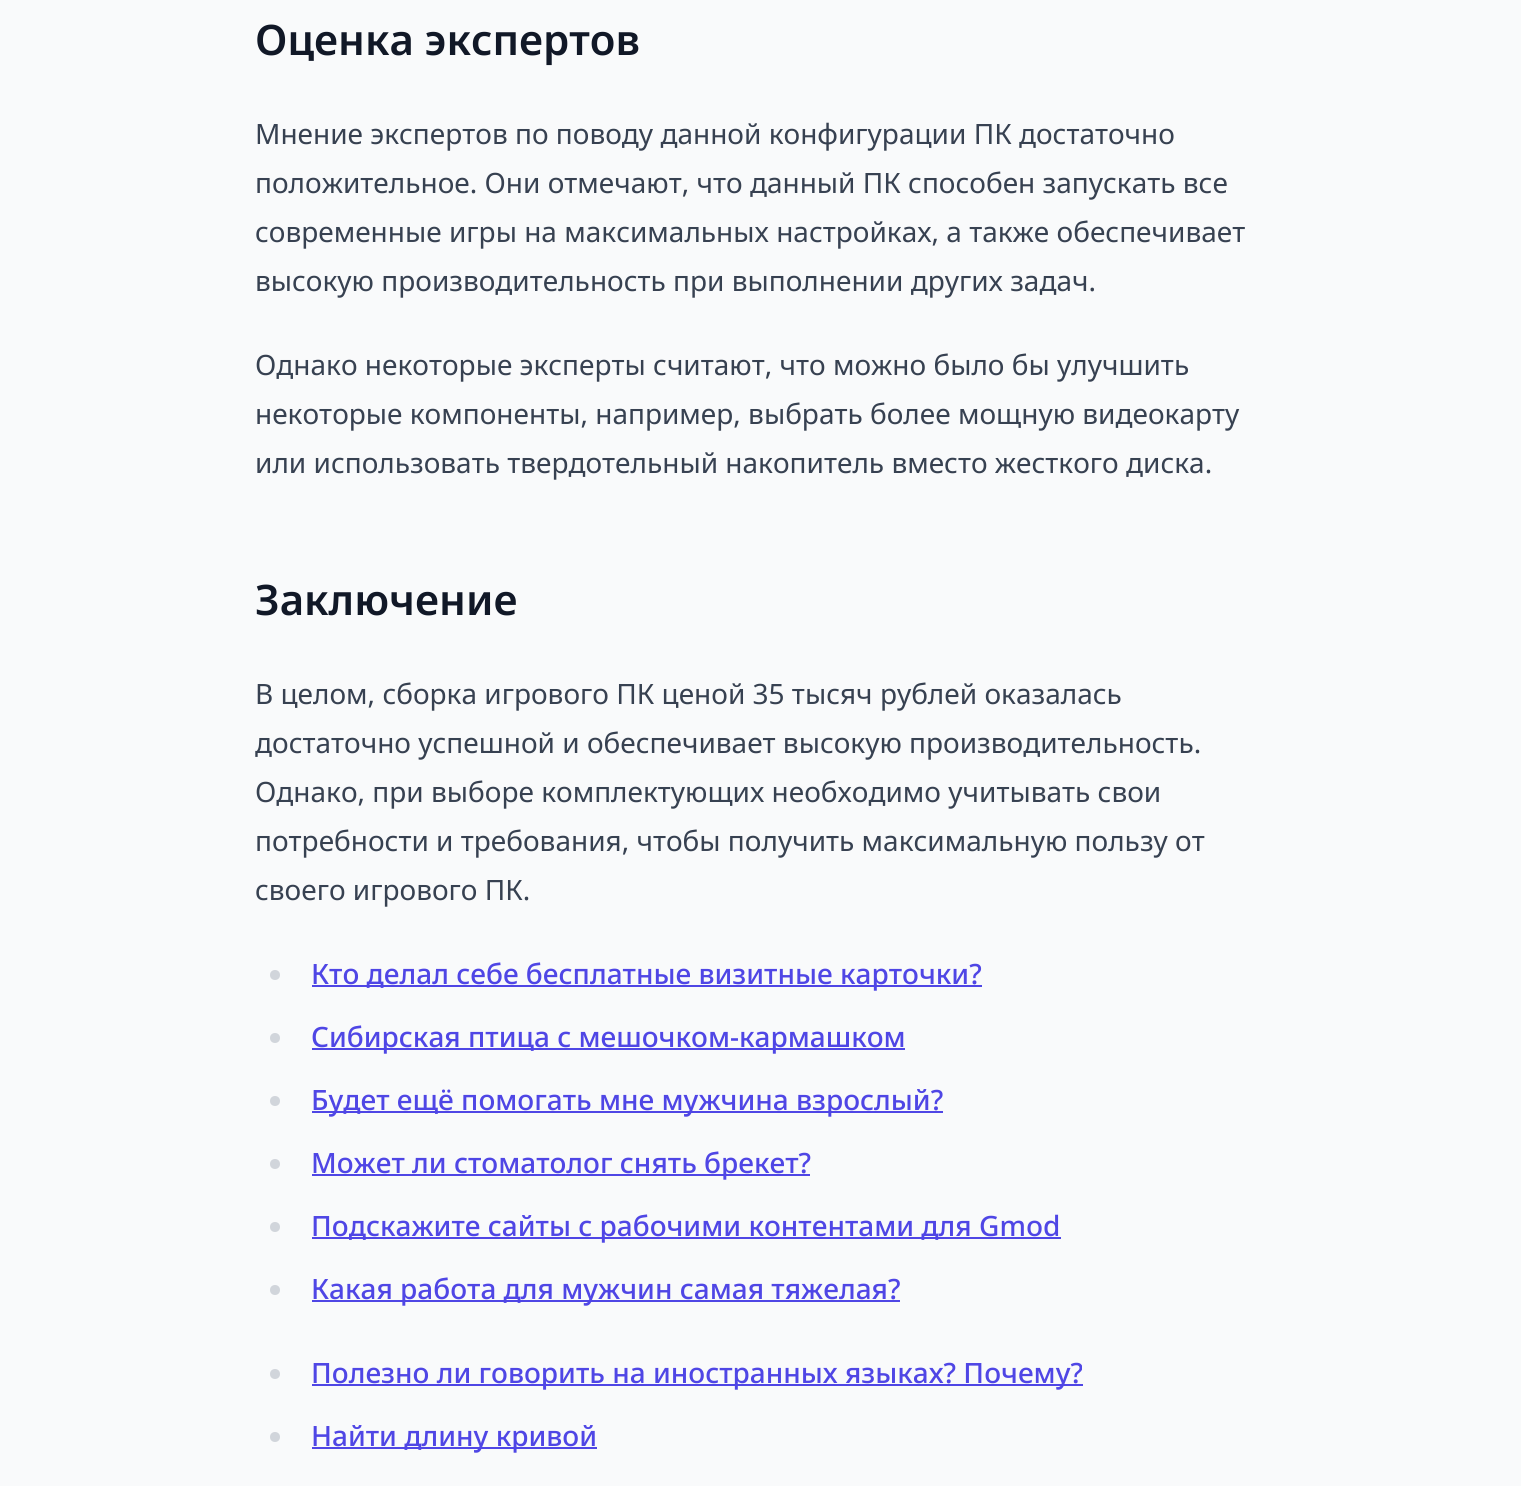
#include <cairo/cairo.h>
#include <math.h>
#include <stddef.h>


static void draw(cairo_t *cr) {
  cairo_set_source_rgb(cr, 249 / 255.0, 250 / 255.0, 251 / 255.0);
  cairo_paint(cr);
  cairo_set_source_rgb(cr, 209 / 255.0, 213 / 255.0, 219 / 255.0);
  cairo_arc(cr, 275, 975, 5, 0, 2 * M_PI);
  cairo_fill(cr);
  cairo_set_source_rgb(cr, 79 / 255.0, 70 / 255.0, 229 / 255.0);
  cairo_rectangle(cr, 312, 985, 670, 2);
  cairo_fill(cr);
  cairo_set_source_rgb(cr, 209 / 255.0, 213 / 255.0, 219 / 255.0);
  cairo_arc(cr, 275, 1038, 5, 0, 2 * M_PI);
  cairo_fill(cr);
  cairo_set_source_rgb(cr, 79 / 255.0, 70 / 255.0, 229 / 255.0);
  cairo_rectangle(cr, 312, 1048, 593, 2);
  cairo_fill(cr);
  cairo_set_source_rgb(cr, 209 / 255.0, 213 / 255.0, 219 / 255.0);
  cairo_arc(cr, 275, 1101, 5, 0, 2 * M_PI);
  cairo_fill(cr);
  cairo_set_source_rgb(cr, 79 / 255.0, 70 / 255.0, 229 / 255.0);
  cairo_rectangle(cr, 312, 1111, 631, 2);
  cairo_fill(cr);
  cairo_set_source_rgb(cr, 209 / 255.0, 213 / 255.0, 219 / 255.0);
  cairo_arc(cr, 275, 1164, 5, 0, 2 * M_PI);
  cairo_fill(cr);
  cairo_set_source_rgb(cr, 79 / 255.0, 70 / 255.0, 229 / 255.0);
  cairo_rectangle(cr, 312, 1174, 498, 2);
  cairo_fill(cr);
  cairo_set_source_rgb(cr, 209 / 255.0, 213 / 255.0, 219 / 255.0);
  cairo_arc(cr, 275, 1227, 5, 0, 2 * M_PI);
  cairo_fill(cr);
  cairo_set_source_rgb(cr, 79 / 255.0, 70 / 255.0, 229 / 255.0);
  cairo_rectangle(cr, 312, 1237, 749, 2);
  cairo_fill(cr);
  cairo_set_source_rgb(cr, 209 / 255.0, 213 / 255.0, 219 / 255.0);
  cairo_arc(cr, 275, 1290, 5, 0, 2 * M_PI);
  cairo_fill(cr);
  cairo_set_source_rgb(cr, 79 / 255.0, 70 / 255.0, 229 / 255.0);
  cairo_rectangle(cr, 312, 1300, 588, 2);
  cairo_fill(cr);
  cairo_set_source_rgb(cr, 209 / 255.0, 213 / 255.0, 219 / 255.0);
  cairo_arc(cr, 275, 1374, 5, 0, 2 * M_PI);
  cairo_fill(cr);
  cairo_set_source_rgb(cr, 79 / 255.0, 70 / 255.0, 229 / 255.0);
  cairo_rectangle(cr, 312, 1384, 771, 2);
  cairo_fill(cr);
  cairo_set_source_rgb(cr, 209 / 255.0, 213 / 255.0, 219 / 255.0);
  cairo_arc(cr, 275, 1437, 5, 0, 2 * M_PI);
  cairo_fill(cr);
  cairo_set_source_rgb(cr, 79 / 255.0, 70 / 255.0, 229 / 255.0);
  cairo_rectangle(cr, 312, 1447, 285, 2);
  cairo_fill(cr);
  cairo_select_font_face(cr, "Noto Sans SemiBold", CAIRO_FONT_SLANT_NORMAL, CAIRO_FONT_WEIGHT_NORMAL);
  cairo_set_font_size(cr, 42);
  cairo_set_source_rgb(cr, 17 / 255.0, 24 / 255.0, 39 / 255.0);
  cairo_move_to(cr, 255, 55);
  cairo_show_text(cr, "Оценка экспертов");
  cairo_select_font_face(cr, "Noto Sans", CAIRO_FONT_SLANT_NORMAL, CAIRO_FONT_WEIGHT_NORMAL);
  cairo_set_font_size(cr, 28);
  cairo_set_source_rgb(cr, 55 / 255.0, 65 / 255.0, 81 / 255.0);
  cairo_move_to(cr, 255, 144);
  cairo_show_text(cr, "Мнение экспертов по поводу данной конфигурации ПК достаточно");
  cairo_move_to(cr, 255, 193);
  cairo_show_text(cr, "положительное. Они отмечают, что данный ПК способен запускать все");
  cairo_move_to(cr, 255, 242);
  cairo_show_text(cr, "современные игры на максимальных настройках, а также обеспечивает");
  cairo_move_to(cr, 255, 291);
  cairo_show_text(cr, "высокую производительность при выполнении других задач.");
  cairo_move_to(cr, 255, 375);
  cairo_show_text(cr, "Однако некоторые эксперты считают, что можно было бы улучшить");
  cairo_move_to(cr, 255, 424);
  cairo_show_text(cr, "некоторые компоненты, например, выбрать более мощную видеокарту");
  cairo_move_to(cr, 255, 473);
  cairo_show_text(cr, "или использовать твердотельный накопитель вместо жесткого диска.");
  cairo_select_font_face(cr, "Noto Sans SemiBold", CAIRO_FONT_SLANT_NORMAL, CAIRO_FONT_WEIGHT_NORMAL);
  cairo_set_font_size(cr, 42);
  cairo_set_source_rgb(cr, 17 / 255.0, 24 / 255.0, 39 / 255.0);
  cairo_move_to(cr, 255, 615);
  cairo_show_text(cr, "Заключение");
  cairo_select_font_face(cr, "Noto Sans", CAIRO_FONT_SLANT_NORMAL, CAIRO_FONT_WEIGHT_NORMAL);
  cairo_set_font_size(cr, 28);
  cairo_set_source_rgb(cr, 55 / 255.0, 65 / 255.0, 81 / 255.0);
  cairo_move_to(cr, 255, 704);
  cairo_show_text(cr, "В целом, сборка игрового ПК ценой 35 тысяч рублей оказалась");
  cairo_move_to(cr, 255, 753);
  cairo_show_text(cr, "достаточно успешной и обеспечивает высокую производительность.");
  cairo_move_to(cr, 255, 802);
  cairo_show_text(cr, "Однако, при выборе комплектующих необходимо учитывать свои");
  cairo_move_to(cr, 255, 851);
  cairo_show_text(cr, "потребности и требования, чтобы получить максимальную пользу от");
  cairo_move_to(cr, 255, 900);
  cairo_show_text(cr, "своего игрового ПК.");
  cairo_select_font_face(cr, "Noto Sans Medium", CAIRO_FONT_SLANT_NORMAL, CAIRO_FONT_WEIGHT_NORMAL);
  cairo_set_source_rgb(cr, 79 / 255.0, 70 / 255.0, 229 / 255.0);
  cairo_move_to(cr, 311, 984);
  cairo_show_text(cr, "Кто делал себе бесплатные визитные карточки?");
  cairo_move_to(cr, 311, 1047);
  cairo_show_text(cr, "Сибирская птица с мешочком-кармашком");
  cairo_move_to(cr, 311, 1110);
  cairo_show_text(cr, "Будет ещё помогать мне мужчина взрослый?");
  cairo_move_to(cr, 311, 1173);
  cairo_show_text(cr, "Может ли стоматолог снять брекет?");
  cairo_move_to(cr, 311, 1236);
  cairo_show_text(cr, "Подскажите сайты с рабочими контентами для Gmod");
  cairo_move_to(cr, 311, 1299);
  cairo_show_text(cr, "Какая работа для мужчин самая тяжелая?");
  cairo_move_to(cr, 311, 1383);
  cairo_show_text(cr, "Полезно ли говорить на иностранных языках? Почему?");
  cairo_move_to(cr, 311, 1446);
  cairo_show_text(cr, "Найти длину кривой");
}

int main(void) {
  cairo_surface_t *surface = cairo_image_surface_create(CAIRO_FORMAT_RGB24, 1521, 1486);
  cairo_t *cr = cairo_create(surface);
  cairo_font_options_t *options = cairo_font_options_create();
  cairo_font_options_set_hint_metrics(options, CAIRO_HINT_METRICS_OFF);
  cairo_font_options_set_hint_style(options, CAIRO_HINT_STYLE_NONE);
  cairo_set_font_options(cr, options);
  cairo_set_miter_limit(cr, 4);
  draw(cr);
  cairo_surface_write_to_png(surface, "out.png");
  cairo_font_options_destroy(options);
  cairo_destroy(cr);
  cairo_surface_destroy(surface);
  return 0;
}
